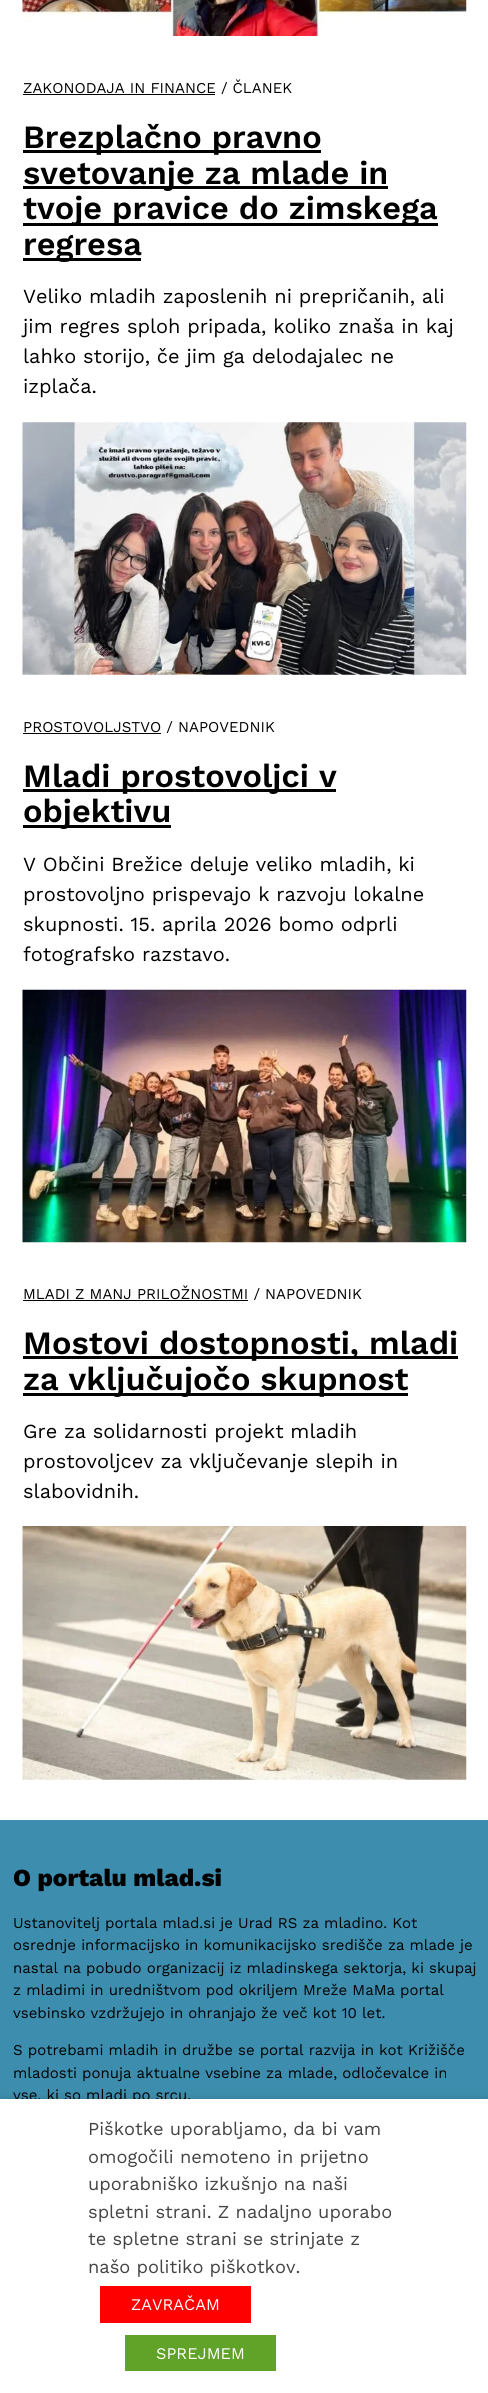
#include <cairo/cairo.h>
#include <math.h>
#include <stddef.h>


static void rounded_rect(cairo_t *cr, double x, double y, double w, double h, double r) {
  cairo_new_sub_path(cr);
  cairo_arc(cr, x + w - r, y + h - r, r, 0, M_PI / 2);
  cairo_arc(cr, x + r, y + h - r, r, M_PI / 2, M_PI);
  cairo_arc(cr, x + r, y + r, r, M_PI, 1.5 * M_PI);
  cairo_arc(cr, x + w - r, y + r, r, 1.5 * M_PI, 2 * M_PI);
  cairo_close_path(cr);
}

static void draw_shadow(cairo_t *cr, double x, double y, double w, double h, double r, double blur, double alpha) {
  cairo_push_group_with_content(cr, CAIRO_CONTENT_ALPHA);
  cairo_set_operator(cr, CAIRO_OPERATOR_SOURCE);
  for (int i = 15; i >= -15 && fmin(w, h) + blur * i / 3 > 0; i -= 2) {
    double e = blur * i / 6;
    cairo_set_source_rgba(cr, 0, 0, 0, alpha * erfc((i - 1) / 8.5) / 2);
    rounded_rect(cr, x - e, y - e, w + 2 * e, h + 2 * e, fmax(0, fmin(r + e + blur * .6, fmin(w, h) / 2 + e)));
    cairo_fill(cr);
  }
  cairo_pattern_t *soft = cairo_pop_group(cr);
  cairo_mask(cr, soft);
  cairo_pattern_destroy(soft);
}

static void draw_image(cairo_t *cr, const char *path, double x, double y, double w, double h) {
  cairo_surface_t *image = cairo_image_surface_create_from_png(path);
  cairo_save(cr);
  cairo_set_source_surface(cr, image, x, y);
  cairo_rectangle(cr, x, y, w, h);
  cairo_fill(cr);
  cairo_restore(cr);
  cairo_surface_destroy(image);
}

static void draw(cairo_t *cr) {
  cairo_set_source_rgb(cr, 1, 1, 1);
  cairo_paint(cr);
  draw_image(cr, "images/1.png", 22, 0, 445, 36);
  cairo_set_source_rgb(cr, 0, 0, 0);
  cairo_rectangle(cr, 23, 94, 192, 1);
  cairo_fill(cr);
  cairo_rectangle(cr, 23, 150, 298, 3);
  cairo_fill(cr);
  cairo_rectangle(cr, 23, 186, 365, 3);
  cairo_fill(cr);
  cairo_rectangle(cr, 23, 223, 415, 3);
  cairo_fill(cr);
  cairo_rectangle(cr, 23, 258, 118, 3);
  cairo_fill(cr);
  draw_image(cr, "images/2.png", 22, 422, 445, 253);
  cairo_rectangle(cr, 23, 733, 138, 1);
  cairo_fill(cr);
  cairo_rectangle(cr, 23, 789, 313, 3);
  cairo_fill(cr);
  cairo_rectangle(cr, 23, 825, 148, 3);
  cairo_fill(cr);
  draw_image(cr, "images/3.png", 22, 989, 445, 254);
  cairo_rectangle(cr, 23, 1300, 225, 1);
  cairo_fill(cr);
  cairo_rectangle(cr, 23, 1356, 435, 3);
  cairo_fill(cr);
  cairo_rectangle(cr, 23, 1393, 385, 3);
  cairo_fill(cr);
  draw_image(cr, "images/4.png", 22, 1526, 445, 254);
  cairo_set_source_rgb(cr, 61 / 255.0, 142 / 255.0, 174 / 255.0);
  cairo_rectangle(cr, 0, 1820, 488, 279);
  cairo_fill(cr);
  cairo_set_source_rgb(cr, 0, 0, 0);
  draw_shadow(cr, 0, 2105, 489, 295, 0, 6, 0.5);
  cairo_select_font_face(cr, "Work Sans", CAIRO_FONT_SLANT_NORMAL, CAIRO_FONT_WEIGHT_NORMAL);
  cairo_set_font_size(cr, 15);
  cairo_set_source_rgb(cr, 0, 0, 0);
  cairo_move_to(cr, 23, 93);
  cairo_show_text(cr, "ZAKONODAJA IN FINANCE / ČLANEK");
  cairo_select_font_face(cr, "Work Sans SemiBold", CAIRO_FONT_SLANT_NORMAL, CAIRO_FONT_WEIGHT_NORMAL);
  cairo_set_font_size(cr, 32.5);
  cairo_move_to(cr, 23, 148);
  cairo_show_text(cr, "Brezplačno pravno");
  cairo_move_to(cr, 23, 184);
  cairo_show_text(cr, "svetovanje za mlade in");
  cairo_move_to(cr, 23, 219);
  cairo_show_text(cr, "tvoje pravice do zimskega");
  cairo_move_to(cr, 23, 255);
  cairo_show_text(cr, "regresa");
  cairo_select_font_face(cr, "Work Sans", CAIRO_FONT_SLANT_NORMAL, CAIRO_FONT_WEIGHT_NORMAL);
  cairo_set_font_size(cr, 20);
  cairo_move_to(cr, 23, 303);
  cairo_show_text(cr, "Veliko mladih zaposlenih ni prepričanih, ali");
  cairo_move_to(cr, 23, 333);
  cairo_show_text(cr, "jim regres sploh pripada, koliko znaša in kaj");
  cairo_move_to(cr, 23, 363);
  cairo_show_text(cr, "lahko storijo, če jim ga delodajalec ne");
  cairo_move_to(cr, 23, 393);
  cairo_show_text(cr, "izplača.");
  cairo_set_font_size(cr, 15);
  cairo_move_to(cr, 23, 732);
  cairo_show_text(cr, "PROSTOVOLJSTVO / NAPOVEDNIK");
  cairo_select_font_face(cr, "Work Sans SemiBold", CAIRO_FONT_SLANT_NORMAL, CAIRO_FONT_WEIGHT_NORMAL);
  cairo_set_font_size(cr, 32.5);
  cairo_move_to(cr, 23, 787);
  cairo_show_text(cr, "Mladi prostovoljci v");
  cairo_move_to(cr, 23, 822);
  cairo_show_text(cr, "objektivu");
  cairo_select_font_face(cr, "Work Sans", CAIRO_FONT_SLANT_NORMAL, CAIRO_FONT_WEIGHT_NORMAL);
  cairo_set_font_size(cr, 20);
  cairo_move_to(cr, 23, 871);
  cairo_show_text(cr, "V Občini Brežice deluje veliko mladih, ki");
  cairo_move_to(cr, 23, 901);
  cairo_show_text(cr, "prostovoljno prispevajo k razvoju lokalne");
  cairo_move_to(cr, 23, 931);
  cairo_show_text(cr, "skupnosti. 15. aprila 2026 bomo odprli");
  cairo_move_to(cr, 23, 961);
  cairo_show_text(cr, "fotografsko razstavo.");
  cairo_set_font_size(cr, 15);
  cairo_move_to(cr, 23, 1299);
  cairo_show_text(cr, "MLADI Z MANJ PRILOŽNOSTMI / NAPOVEDNIK");
  cairo_select_font_face(cr, "Work Sans SemiBold", CAIRO_FONT_SLANT_NORMAL, CAIRO_FONT_WEIGHT_NORMAL);
  cairo_set_font_size(cr, 32.5);
  cairo_move_to(cr, 23, 1354);
  cairo_show_text(cr, "Mostovi dostopnosti, mladi");
  cairo_move_to(cr, 23, 1390);
  cairo_show_text(cr, "za vključujočo skupnost");
  cairo_select_font_face(cr, "Work Sans", CAIRO_FONT_SLANT_NORMAL, CAIRO_FONT_WEIGHT_NORMAL);
  cairo_set_font_size(cr, 20);
  cairo_move_to(cr, 23, 1438);
  cairo_show_text(cr, "Gre za solidarnosti projekt mladih");
  cairo_move_to(cr, 23, 1468);
  cairo_show_text(cr, "prostovoljcev za vključevanje slepih in");
  cairo_move_to(cr, 23, 1498);
  cairo_show_text(cr, "slabovidnih.");
  cairo_select_font_face(cr, "Work Sans ExtraBold", CAIRO_FONT_SLANT_NORMAL, CAIRO_FONT_WEIGHT_NORMAL);
  cairo_set_font_size(cr, 24.5);
  cairo_move_to(cr, 13, 1886);
  cairo_show_text(cr, "O portalu mlad.si");
  cairo_select_font_face(cr, "Work Sans", CAIRO_FONT_SLANT_NORMAL, CAIRO_FONT_WEIGHT_NORMAL);
  cairo_set_font_size(cr, 15);
  cairo_move_to(cr, 13, 1928);
  cairo_show_text(cr, "Ustanovitelj portala mlad.si je Urad RS za mladino. Kot");
  cairo_move_to(cr, 13, 1950);
  cairo_show_text(cr, "osrednje informacijsko in komunikacijsko središče za mlade je");
  cairo_move_to(cr, 13, 1973);
  cairo_show_text(cr, "nastal na pobudo organizacij iz mladinskega sektorja, ki skupaj");
  cairo_move_to(cr, 13, 1995);
  cairo_show_text(cr, "z mladimi in uredništvom pod okriljem Mreže MaMa portal");
  cairo_move_to(cr, 13, 2018);
  cairo_show_text(cr, "vsebinsko vzdržujejo in ohranjajo že več kot 10 let.");
  cairo_move_to(cr, 13, 2055);
  cairo_show_text(cr, "S potrebami mladih in družbe se portal razvija in kot Križišče");
  cairo_move_to(cr, 13, 2078);
  cairo_show_text(cr, "mladosti ponuja aktualne vsebine za mlade, odločevalce in");
  cairo_move_to(cr, 13, 2100);
  cairo_show_text(cr, "vse, ki so mladi po srcu.");
  cairo_set_source_rgb(cr, 1, 1, 1);
  cairo_rectangle(cr, 0, 2099, 488, 294);
  cairo_fill(cr);
  cairo_set_font_size(cr, 18.3);
  cairo_set_source_rgb(cr, 68 / 255.0, 68 / 255.0, 68 / 255.0);
  cairo_move_to(cr, 88, 2135);
  cairo_show_text(cr, "Piškotke uporabljamo, da bi vam");
  cairo_move_to(cr, 88, 2163);
  cairo_show_text(cr, "omogočili nemoteno in prijetno");
  cairo_move_to(cr, 88, 2190);
  cairo_show_text(cr, "uporabniško izkušnjo na naši");
  cairo_move_to(cr, 88, 2218);
  cairo_show_text(cr, "spletni strani. Z nadaljno uporabo");
  cairo_move_to(cr, 88, 2245);
  cairo_show_text(cr, "te spletne strani se strinjate z");
  cairo_move_to(cr, 88, 2273);
  cairo_show_text(cr, "našo politiko piškotkov.");
  cairo_set_source_rgb(cr, 1, 0, 0);
  cairo_rectangle(cr, 100, 2286, 151, 37);
  cairo_fill(cr);
  cairo_set_font_size(cr, 16.25);
  cairo_set_source_rgb(cr, 1, 1, 1);
  cairo_move_to(cr, 131, 2310);
  cairo_show_text(cr, "ZAVRAČAM");
  cairo_set_source_rgb(cr, 97 / 255.0, 162 / 255.0, 41 / 255.0);
  cairo_rectangle(cr, 125, 2335, 151, 36);
  cairo_fill(cr);
  cairo_set_source_rgb(cr, 1, 1, 1);
  cairo_move_to(cr, 156, 2359);
  cairo_show_text(cr, "SPREJMEM");
}

int main(void) {
  cairo_surface_t *surface = cairo_image_surface_create(CAIRO_FORMAT_RGB24, 488, 2393);
  cairo_t *cr = cairo_create(surface);
  cairo_font_options_t *options = cairo_font_options_create();
  cairo_font_options_set_hint_metrics(options, CAIRO_HINT_METRICS_OFF);
  cairo_font_options_set_hint_style(options, CAIRO_HINT_STYLE_NONE);
  cairo_set_font_options(cr, options);
  cairo_set_miter_limit(cr, 4);
  draw(cr);
  cairo_surface_write_to_png(surface, "out.png");
  cairo_font_options_destroy(options);
  cairo_destroy(cr);
  cairo_surface_destroy(surface);
  return 0;
}
